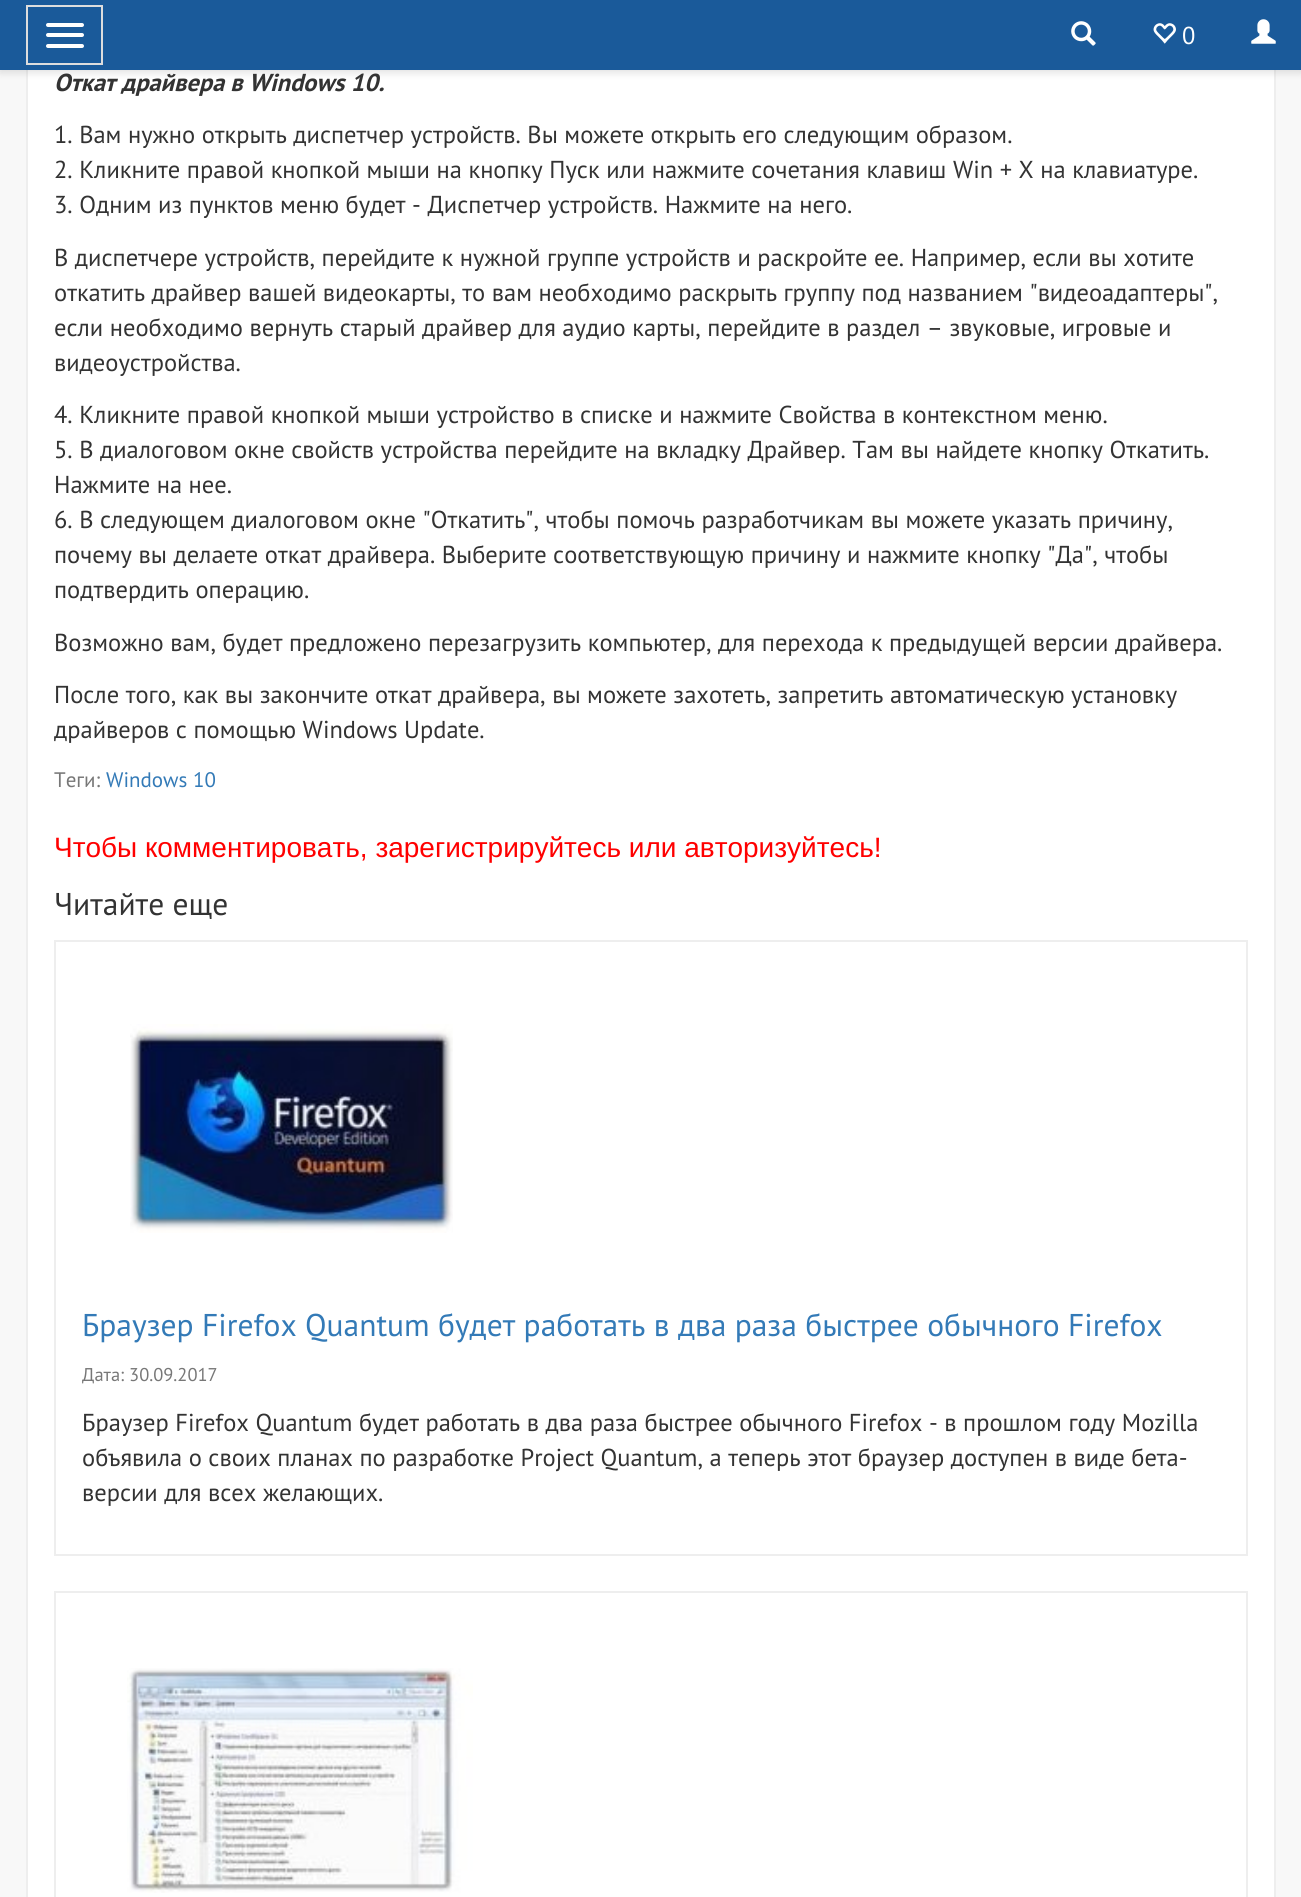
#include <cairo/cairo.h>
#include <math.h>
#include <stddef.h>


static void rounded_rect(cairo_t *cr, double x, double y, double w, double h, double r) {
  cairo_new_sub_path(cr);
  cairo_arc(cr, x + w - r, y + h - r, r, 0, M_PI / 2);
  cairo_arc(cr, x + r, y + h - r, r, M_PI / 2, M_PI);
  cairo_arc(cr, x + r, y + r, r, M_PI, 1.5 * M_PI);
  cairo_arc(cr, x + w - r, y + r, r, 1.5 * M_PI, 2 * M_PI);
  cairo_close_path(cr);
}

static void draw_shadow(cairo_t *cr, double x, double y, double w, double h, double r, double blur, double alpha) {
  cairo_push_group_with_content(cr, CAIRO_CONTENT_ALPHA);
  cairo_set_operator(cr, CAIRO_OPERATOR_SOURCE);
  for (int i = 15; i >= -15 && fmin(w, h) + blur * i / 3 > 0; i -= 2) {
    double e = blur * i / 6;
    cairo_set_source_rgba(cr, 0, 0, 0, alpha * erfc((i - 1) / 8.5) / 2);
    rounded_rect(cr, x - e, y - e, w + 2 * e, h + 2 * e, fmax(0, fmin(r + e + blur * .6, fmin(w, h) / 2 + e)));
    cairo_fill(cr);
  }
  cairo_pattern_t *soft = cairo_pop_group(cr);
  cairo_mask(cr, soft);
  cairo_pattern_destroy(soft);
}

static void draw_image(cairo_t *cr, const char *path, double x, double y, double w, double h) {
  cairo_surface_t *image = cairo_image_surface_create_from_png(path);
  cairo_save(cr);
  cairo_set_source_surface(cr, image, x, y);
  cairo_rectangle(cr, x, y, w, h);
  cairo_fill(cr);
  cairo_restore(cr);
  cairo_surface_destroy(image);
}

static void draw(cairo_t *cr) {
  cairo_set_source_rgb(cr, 248 / 255.0, 248 / 255.0, 248 / 255.0);
  cairo_paint(cr);
  cairo_set_source_rgb(cr, 1, 1, 1);
  cairo_rectangle(cr, 28, 70, 1246, 1827);
  cairo_fill(cr);
  cairo_rectangle(cr, 27, -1, 1248, 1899);
  cairo_set_source_rgb(cr, 238 / 255.0, 238 / 255.0, 238 / 255.0);
  cairo_stroke(cr);
  cairo_set_source_rgb(cr, 0, 0, 0);
  draw_shadow(cr, 0, 2, 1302, 70, 0, 4.5, 0.14);
  cairo_set_source_rgb(cr, 26 / 255.0, 90 / 255.0, 154 / 255.0);
  cairo_rectangle(cr, 0, 0, 1301, 70);
  cairo_fill(cr);
  cairo_rectangle(cr, 27, 6, 75, 58);
  cairo_set_source_rgb(cr, 221 / 255.0, 221 / 255.0, 221 / 255.0);
  cairo_stroke(cr);
  cairo_set_source_rgb(cr, 1, 1, 1);
  rounded_rect(cr, 46, 23, 38, 4, 2);
  cairo_fill(cr);
  rounded_rect(cr, 46, 33, 38, 4, 2);
  cairo_fill(cr);
  rounded_rect(cr, 46, 44, 38, 4, 2);
  cairo_fill(cr);
  draw_image(cr, "images/1.png", 1071, 21, 25, 25);
  draw_image(cr, "images/2.png", 1153, 23, 23, 21);
  draw_image(cr, "images/3.png", 1251, 19, 25, 25);
  cairo_rectangle(cr, 55, 941, 1192, 614);
  cairo_set_source_rgb(cr, 238 / 255.0, 238 / 255.0, 238 / 255.0);
  cairo_stroke(cr);
  draw_image(cr, "images/4.png", 130, 1024, 323, 209);
  cairo_rectangle(cr, 55, 1592, 1192, 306);
  cairo_stroke(cr);
  draw_image(cr, "images/5.png", 127, 1668, 346, 225);
  cairo_select_font_face(cr, "PT Sans", CAIRO_FONT_SLANT_NORMAL, CAIRO_FONT_WEIGHT_NORMAL);
  cairo_set_font_size(cr, 24.5);
  cairo_set_source_rgb(cr, 1, 1, 1);
  cairo_move_to(cr, 1182, 44);
  cairo_show_text(cr, "0");
  cairo_select_font_face(cr, "PT Sans", CAIRO_FONT_SLANT_ITALIC, CAIRO_FONT_WEIGHT_BOLD);
  cairo_set_source_rgb(cr, 51 / 255.0, 51 / 255.0, 51 / 255.0);
  cairo_move_to(cr, 54, 91);
  cairo_show_text(cr, "Откат драйвера в Windows 10.");
  cairo_select_font_face(cr, "PT Sans", CAIRO_FONT_SLANT_NORMAL, CAIRO_FONT_WEIGHT_NORMAL);
  cairo_move_to(cr, 54, 143);
  cairo_show_text(cr, "1. Вам нужно открыть диспетчер устройств. Вы можете открыть его следующим образом.");
  cairo_move_to(cr, 54, 178);
  cairo_show_text(cr, "2. Кликните правой кнопкой мыши на кнопку Пуск или нажмите сочетания клавиш Win + X на клавиатуре.");
  cairo_move_to(cr, 54, 213);
  cairo_show_text(cr, "3. Одним из пунктов меню будет - Диспетчер устройств. Нажмите на него.");
  cairo_move_to(cr, 54, 266);
  cairo_show_text(cr, "В диспетчере устройств, перейдите к нужной группе устройств и раскройте ее. Например, если вы хотите");
  cairo_move_to(cr, 54, 301);
  cairo_show_text(cr, "откатить драйвер вашей видеокарты, то вам необходимо раскрыть группу под названием \"видеоадаптеры\",");
  cairo_move_to(cr, 54, 336);
  cairo_show_text(cr, "если необходимо вернуть старый драйвер для аудио карты, перейдите в раздел – звуковые, игровые и");
  cairo_move_to(cr, 54, 371);
  cairo_show_text(cr, "видеоустройства.");
  cairo_move_to(cr, 54, 423);
  cairo_show_text(cr, "4. Кликните правой кнопкой мыши устройство в списке и нажмите Свойства в контекстном меню.");
  cairo_move_to(cr, 54, 458);
  cairo_show_text(cr, "5. В диалоговом окне свойств устройства перейдите на вкладку Драйвер. Там вы найдете кнопку Откатить.");
  cairo_move_to(cr, 54, 493);
  cairo_show_text(cr, "Нажмите на нее.");
  cairo_move_to(cr, 54, 528);
  cairo_show_text(cr, "6. В следующем диалоговом окне \"Откатить\", чтобы помочь разработчикам вы можете указать причину,");
  cairo_move_to(cr, 54, 563);
  cairo_show_text(cr, "почему вы делаете откат драйвера. Выберите соответствующую причину и нажмите кнопку \"Да\", чтобы");
  cairo_move_to(cr, 54, 598);
  cairo_show_text(cr, "подтвердить операцию.");
  cairo_move_to(cr, 54, 651);
  cairo_show_text(cr, "Возможно вам, будет предложено перезагрузить компьютер, для перехода к предыдущей версии драйвера.");
  cairo_move_to(cr, 54, 703);
  cairo_show_text(cr, "После того, как вы закончите откат драйвера, вы можете захотеть, запретить автоматическую установку");
  cairo_move_to(cr, 54, 738);
  cairo_show_text(cr, "драйверов с помощью Windows Update.");
  cairo_set_font_size(cr, 21);
  cairo_set_source_rgb(cr, 119 / 255.0, 119 / 255.0, 119 / 255.0);
  cairo_move_to(cr, 54, 787);
  cairo_show_text(cr, "Теги:");
  cairo_set_source_rgb(cr, 51 / 255.0, 122 / 255.0, 183 / 255.0);
  cairo_move_to(cr, 106, 787);
  cairo_show_text(cr, "Windows 10");
  cairo_select_font_face(cr, "Liberation Sans", CAIRO_FONT_SLANT_NORMAL, CAIRO_FONT_WEIGHT_NORMAL);
  cairo_set_font_size(cr, 28);
  cairo_set_source_rgb(cr, 1, 0, 0);
  cairo_move_to(cr, 54, 857);
  cairo_show_text(cr, "Чтобы комментировать, зарегистрируйтесь или авторизуйтесь!");
  cairo_select_font_face(cr, "PT Sans", CAIRO_FONT_SLANT_NORMAL, CAIRO_FONT_WEIGHT_NORMAL);
  cairo_set_font_size(cr, 31.5);
  cairo_set_source_rgb(cr, 51 / 255.0, 51 / 255.0, 51 / 255.0);
  cairo_move_to(cr, 54, 915);
  cairo_show_text(cr, "Читайте еще");
  cairo_set_source_rgb(cr, 51 / 255.0, 122 / 255.0, 183 / 255.0);
  cairo_move_to(cr, 82, 1336);
  cairo_show_text(cr, "Браузер Firefox Quantum будет работать в два раза быстрее обычного Firefox");
  cairo_set_font_size(cr, 18.5);
  cairo_set_source_rgb(cr, 119 / 255.0, 119 / 255.0, 119 / 255.0);
  cairo_move_to(cr, 82, 1381);
  cairo_show_text(cr, "Дата: 30.09.2017");
  cairo_set_font_size(cr, 24.5);
  cairo_set_source_rgb(cr, 51 / 255.0, 51 / 255.0, 51 / 255.0);
  cairo_move_to(cr, 82, 1431);
  cairo_show_text(cr, "Браузер Firefox Quantum будет работать в два раза быстрее обычного Firefox - в прошлом году Mozilla");
  cairo_move_to(cr, 82, 1466);
  cairo_show_text(cr, "объявила о своих планах по разработке Project Quantum, а теперь этот браузер доступен в виде бета-");
  cairo_move_to(cr, 82, 1501);
  cairo_show_text(cr, "версии для всех желающих.");
}

int main(void) {
  cairo_surface_t *surface = cairo_image_surface_create(CAIRO_FORMAT_RGB24, 1301, 1897);
  cairo_t *cr = cairo_create(surface);
  cairo_font_options_t *options = cairo_font_options_create();
  cairo_font_options_set_hint_metrics(options, CAIRO_HINT_METRICS_OFF);
  cairo_font_options_set_hint_style(options, CAIRO_HINT_STYLE_NONE);
  cairo_set_font_options(cr, options);
  cairo_set_miter_limit(cr, 4);
  draw(cr);
  cairo_surface_write_to_png(surface, "out.png");
  cairo_font_options_destroy(options);
  cairo_destroy(cr);
  cairo_surface_destroy(surface);
  return 0;
}
